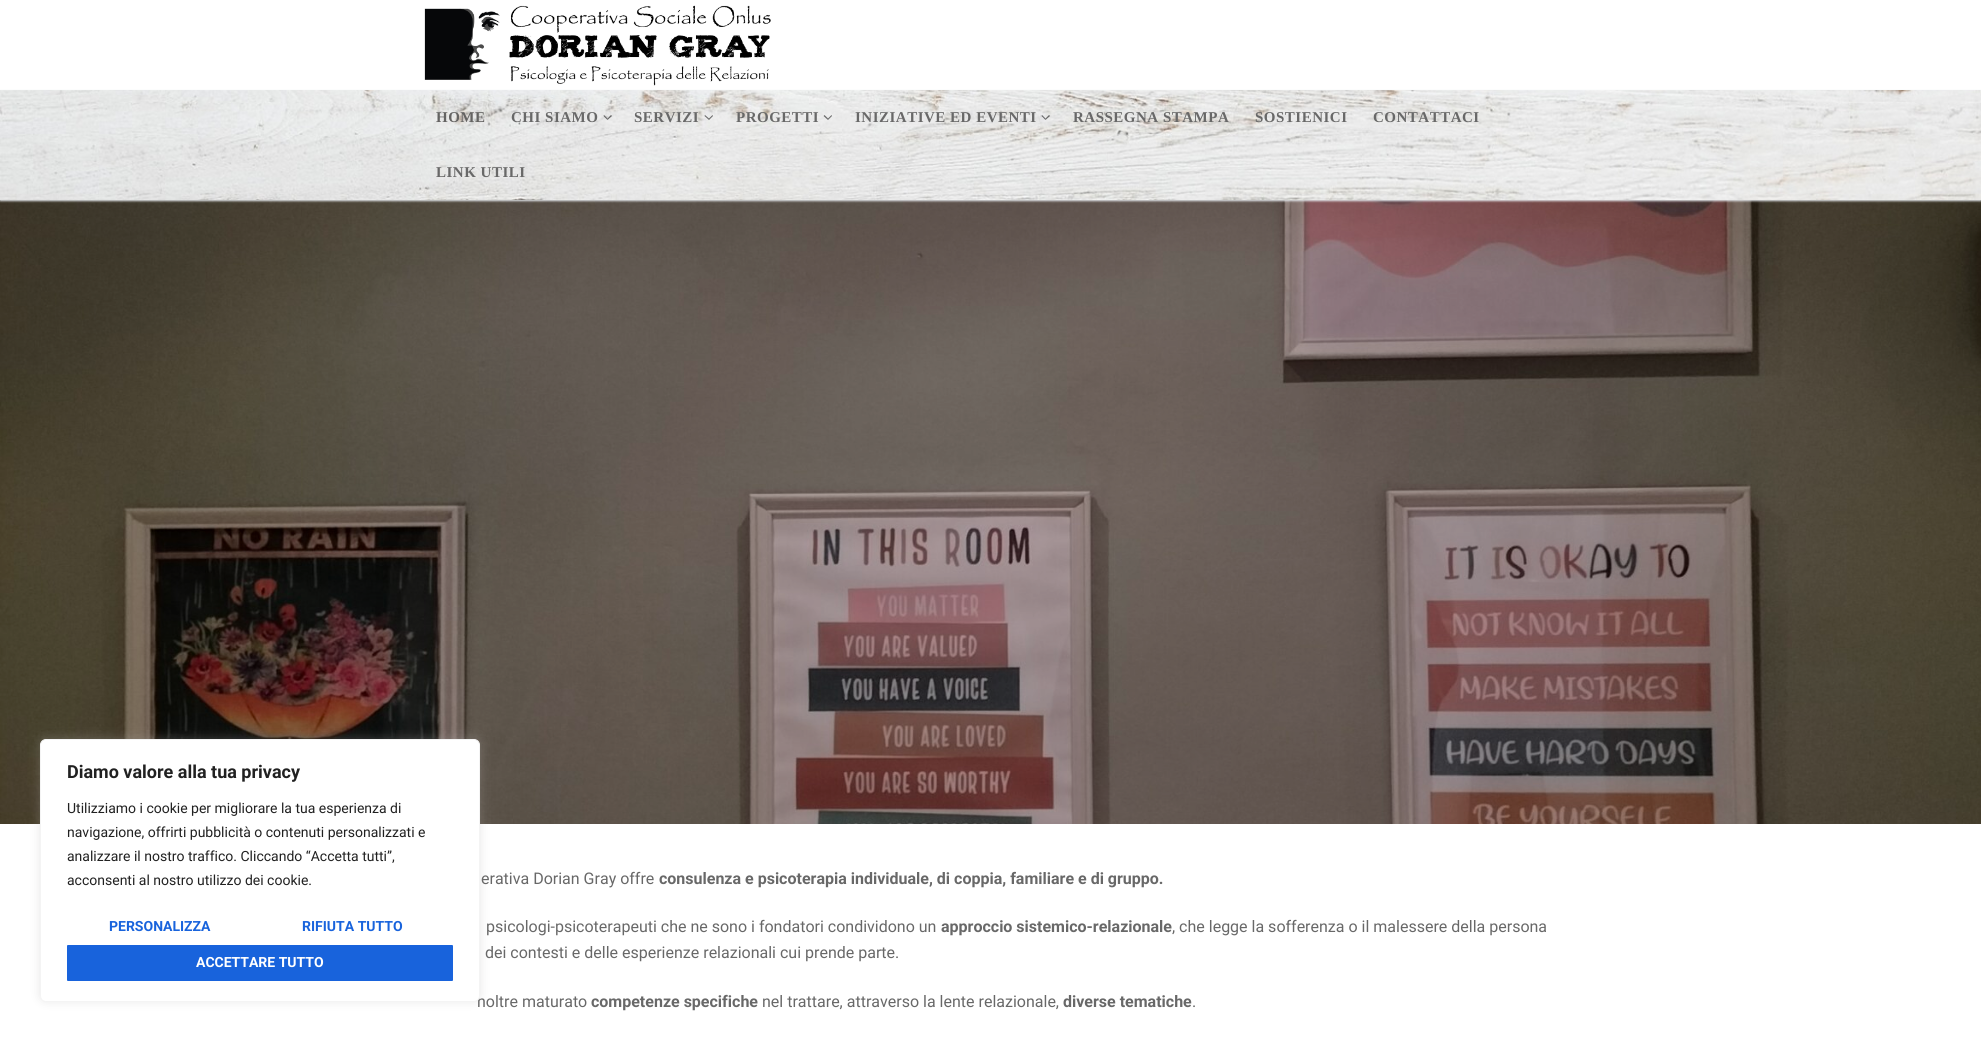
#include <cairo/cairo.h>
#include <math.h>
#include <stddef.h>


static void draw_spaced(cairo_t *cr, double x, double y, const char *s, double letter, double word) {
  cairo_move_to(cr, x, y);
  while (*s) {
    char ch[5] = {0};
    int n = 0;
    do ch[n++] = *s++; while ((*s & 0xC0) == 0x80);
    cairo_show_text(cr, ch);
    cairo_rel_move_to(cr, letter + word * (*ch == ' '), 0);
  }
}

static void rounded_rect(cairo_t *cr, double x, double y, double w, double h, double r) {
  cairo_new_sub_path(cr);
  cairo_arc(cr, x + w - r, y + h - r, r, 0, M_PI / 2);
  cairo_arc(cr, x + r, y + h - r, r, M_PI / 2, M_PI);
  cairo_arc(cr, x + r, y + r, r, M_PI, 1.5 * M_PI);
  cairo_arc(cr, x + w - r, y + r, r, 1.5 * M_PI, 2 * M_PI);
  cairo_close_path(cr);
}

static void draw_shadow(cairo_t *cr, double x, double y, double w, double h, double r, double blur, double alpha) {
  cairo_push_group_with_content(cr, CAIRO_CONTENT_ALPHA);
  cairo_set_operator(cr, CAIRO_OPERATOR_SOURCE);
  for (int i = 15; i >= -15 && fmin(w, h) + blur * i / 3 > 0; i -= 2) {
    double e = blur * i / 6;
    cairo_set_source_rgba(cr, 0, 0, 0, alpha * erfc((i - 1) / 8.5) / 2);
    rounded_rect(cr, x - e, y - e, w + 2 * e, h + 2 * e, fmax(0, fmin(r + e + blur * .6, fmin(w, h) / 2 + e)));
    cairo_fill(cr);
  }
  cairo_pattern_t *soft = cairo_pop_group(cr);
  cairo_mask(cr, soft);
  cairo_pattern_destroy(soft);
}

static void draw_image(cairo_t *cr, const char *path, double x, double y, double w, double h) {
  cairo_surface_t *image = cairo_image_surface_create_from_png(path);
  cairo_save(cr);
  cairo_set_source_surface(cr, image, x, y);
  cairo_rectangle(cr, x, y, w, h);
  cairo_fill(cr);
  cairo_restore(cr);
  cairo_surface_destroy(image);
}

static void draw(cairo_t *cr) {
  cairo_set_source_rgb(cr, 1, 1, 1);
  cairo_paint(cr);
  draw_image(cr, "images/3.png", 0, 200, 1981, 624);
  cairo_set_source_rgb(cr, 172 / 255.0, 171 / 255.0, 171 / 255.0);
  draw_shadow(cr, 40, 738, 440, 263, 6, 5, 0.3);
  draw_image(cr, "images/1.png", 424, 5, 347, 81);
  cairo_set_source_rgb(cr, 225 / 255.0, 229 / 255.0, 234 / 255.0);
  draw_shadow(cr, 0, 91, 1981, 110, 0, 1, 1);
  draw_image(cr, "images/2.png", 0, 90, 1981, 110);
  cairo_set_source_rgba(cr, 0, 0, 0, 0.55);
  cairo_new_path(cr);
  cairo_move_to(cr, 607.5, 120);
  cairo_line_to(cr, 603.5, 116);
  cairo_line_to(cr, 604, 115);
  cairo_line_to(cr, 607.5, 118.5);
  cairo_close_path(cr);
  cairo_fill(cr);
  cairo_new_path(cr);
  cairo_move_to(cr, 612, 116);
  cairo_line_to(cr, 607.5, 120);
  cairo_line_to(cr, 607.5, 118.5);
  cairo_line_to(cr, 611, 115);
  cairo_close_path(cr);
  cairo_fill(cr);
  cairo_new_path(cr);
  cairo_move_to(cr, 709, 120);
  cairo_line_to(cr, 704.5, 116);
  cairo_line_to(cr, 705, 115);
  cairo_line_to(cr, 709, 118.5);
  cairo_close_path(cr);
  cairo_move_to(cr, 713, 116);
  cairo_line_to(cr, 709, 120);
  cairo_line_to(cr, 709, 118.5);
  cairo_line_to(cr, 712.5, 115);
  cairo_close_path(cr);
  cairo_fill(cr);
  cairo_new_path(cr);
  cairo_move_to(cr, 828, 120);
  cairo_line_to(cr, 823.5, 116);
  cairo_line_to(cr, 824.5, 115);
  cairo_line_to(cr, 828, 118.5);
  cairo_close_path(cr);
  cairo_move_to(cr, 832, 116);
  cairo_line_to(cr, 828, 120);
  cairo_line_to(cr, 828, 118.5);
  cairo_line_to(cr, 831.5, 115);
  cairo_close_path(cr);
  cairo_fill(cr);
  cairo_new_path(cr);
  cairo_move_to(cr, 1045.5, 120);
  cairo_line_to(cr, 1041.5, 116);
  cairo_line_to(cr, 1042, 115);
  cairo_line_to(cr, 1045.5, 118.5);
  cairo_close_path(cr);
  cairo_fill(cr);
  cairo_new_path(cr);
  cairo_move_to(cr, 1050, 116);
  cairo_line_to(cr, 1045.5, 120);
  cairo_line_to(cr, 1045.5, 118.5);
  cairo_line_to(cr, 1049, 115);
  cairo_close_path(cr);
  cairo_fill(cr);
  cairo_select_font_face(cr, "Liberation Serif", CAIRO_FONT_SLANT_NORMAL, CAIRO_FONT_WEIGHT_BOLD);
  cairo_set_font_size(cr, 15);
  cairo_set_source_rgb(cr, 100 / 255.0, 99 / 255.0, 98 / 255.0);
  draw_spaced(cr, 436, 122, "HOME", 0.5, 0);
  cairo_set_source_rgb(cr, 104 / 255.0, 104 / 255.0, 104 / 255.0);
  draw_spaced(cr, 511, 122, "CHI SIAMO", 0.5, 0);
  draw_spaced(cr, 634, 122, "SERVIZI", 0.5, 0);
  draw_spaced(cr, 736, 122, "PROGETTI", 0.5, 0);
  draw_spaced(cr, 855, 122, "INIZIATIVE ED EVENTI", 0.5, 0);
  draw_spaced(cr, 1073, 122, "RASSEGNA STAMPA", 0.5, 0);
  draw_spaced(cr, 1255, 122, "SOSTIENICI", 0.5, 0);
  draw_spaced(cr, 1373, 122, "CONTATTACI", 0.5, 0);
  draw_spaced(cr, 436, 177, "LINK UTILI", 0.5, 0);
  cairo_select_font_face(cr, "Roboto", CAIRO_FONT_SLANT_NORMAL, CAIRO_FONT_WEIGHT_NORMAL);
  cairo_set_font_size(cr, 16);
  cairo_move_to(cr, 481, 884);
  cairo_show_text(cr, "erativa Dorian Gray offre");
  cairo_select_font_face(cr, "Roboto", CAIRO_FONT_SLANT_NORMAL, CAIRO_FONT_WEIGHT_BOLD);
  cairo_move_to(cr, 659, 884);
  cairo_show_text(cr, "consulenza e psicoterapia individuale, di coppia, familiare e di gruppo.");
  cairo_select_font_face(cr, "Roboto", CAIRO_FONT_SLANT_NORMAL, CAIRO_FONT_WEIGHT_NORMAL);
  cairo_move_to(cr, 486, 932);
  cairo_show_text(cr, "psicologi-psicoterapeuti che ne sono i fondatori condividono un");
  cairo_select_font_face(cr, "Roboto", CAIRO_FONT_SLANT_NORMAL, CAIRO_FONT_WEIGHT_BOLD);
  cairo_move_to(cr, 941, 932);
  cairo_show_text(cr, "approccio sistemico-relazionale");
  cairo_select_font_face(cr, "Roboto", CAIRO_FONT_SLANT_NORMAL, CAIRO_FONT_WEIGHT_NORMAL);
  cairo_move_to(cr, 1172, 932);
  cairo_show_text(cr, ", che legge la sofferenza o il malessere della persona");
  cairo_move_to(cr, 485, 958);
  cairo_show_text(cr, "dei contesti e delle esperienze relazionali cui prende parte.");
  cairo_move_to(cr, 477, 1007);
  cairo_show_text(cr, "noltre maturato");
  cairo_set_source_rgb(cr, 1, 1, 1);
  rounded_rect(cr, 40.5, 739.5, 439, 262, 5.5);
  cairo_fill_preserve(cr);
  cairo_set_source_rgb(cr, 244 / 255.0, 244 / 255.0, 244 / 255.0);
  cairo_set_line_width(cr, 1);
  cairo_stroke(cr);
  cairo_set_source_rgb(cr, 24 / 255.0, 99 / 255.0, 220 / 255.0);
  rounded_rect(cr, 67, 945, 386, 36, 1);
  cairo_fill(cr);
  cairo_select_font_face(cr, "Roboto", CAIRO_FONT_SLANT_NORMAL, CAIRO_FONT_WEIGHT_BOLD);
  cairo_set_font_size(cr, 14);
  cairo_set_source_rgb(cr, 1, 1, 1);
  cairo_move_to(cr, 196, 967);
  cairo_show_text(cr, "ACCETTARE TUTTO");
  cairo_set_source_rgb(cr, 24 / 255.0, 99 / 255.0, 220 / 255.0);
  cairo_move_to(cr, 302, 931);
  cairo_show_text(cr, "RIFIUTA TUTTO");
  cairo_move_to(cr, 109, 931);
  cairo_show_text(cr, "PERSONALIZZA");
  cairo_select_font_face(cr, "Roboto", CAIRO_FONT_SLANT_NORMAL, CAIRO_FONT_WEIGHT_NORMAL);
  cairo_set_source_rgb(cr, 33 / 255.0, 33 / 255.0, 33 / 255.0);
  cairo_move_to(cr, 67, 885);
  cairo_show_text(cr, "acconsenti al nostro utilizzo dei cookie.");
  cairo_move_to(cr, 67, 861);
  cairo_show_text(cr, "analizzare il nostro traffico. Cliccando “Accetta tutti”,");
  cairo_move_to(cr, 67, 837);
  cairo_show_text(cr, "navigazione, offrirti pubblicità o contenuti personalizzati e");
  cairo_move_to(cr, 67, 813);
  cairo_show_text(cr, "Utilizziamo i cookie per migliorare la tua esperienza di");
  cairo_select_font_face(cr, "Roboto", CAIRO_FONT_SLANT_NORMAL, CAIRO_FONT_WEIGHT_BOLD);
  cairo_set_font_size(cr, 18);
  cairo_move_to(cr, 67, 778);
  cairo_show_text(cr, "Diamo valore alla tua privacy");
  cairo_set_font_size(cr, 16);
  cairo_set_source_rgb(cr, 104 / 255.0, 104 / 255.0, 104 / 255.0);
  cairo_move_to(cr, 591, 1007);
  cairo_show_text(cr, "competenze specifiche");
  cairo_select_font_face(cr, "Roboto", CAIRO_FONT_SLANT_NORMAL, CAIRO_FONT_WEIGHT_NORMAL);
  cairo_move_to(cr, 762, 1007);
  cairo_show_text(cr, "nel trattare, attraverso la lente relazionale,");
  cairo_select_font_face(cr, "Roboto", CAIRO_FONT_SLANT_NORMAL, CAIRO_FONT_WEIGHT_BOLD);
  cairo_move_to(cr, 1063, 1007);
  cairo_show_text(cr, "diverse tematiche");
  cairo_select_font_face(cr, "Roboto", CAIRO_FONT_SLANT_NORMAL, CAIRO_FONT_WEIGHT_NORMAL);
  cairo_move_to(cr, 1192, 1007);
  cairo_show_text(cr, ".");
}

int main(void) {
  cairo_surface_t *surface = cairo_image_surface_create(CAIRO_FORMAT_RGB24, 1981, 1042);
  cairo_t *cr = cairo_create(surface);
  cairo_font_options_t *options = cairo_font_options_create();
  cairo_font_options_set_hint_metrics(options, CAIRO_HINT_METRICS_OFF);
  cairo_font_options_set_hint_style(options, CAIRO_HINT_STYLE_NONE);
  cairo_set_font_options(cr, options);
  cairo_set_miter_limit(cr, 4);
  draw(cr);
  cairo_surface_write_to_png(surface, "out.png");
  cairo_font_options_destroy(options);
  cairo_destroy(cr);
  cairo_surface_destroy(surface);
  return 0;
}
